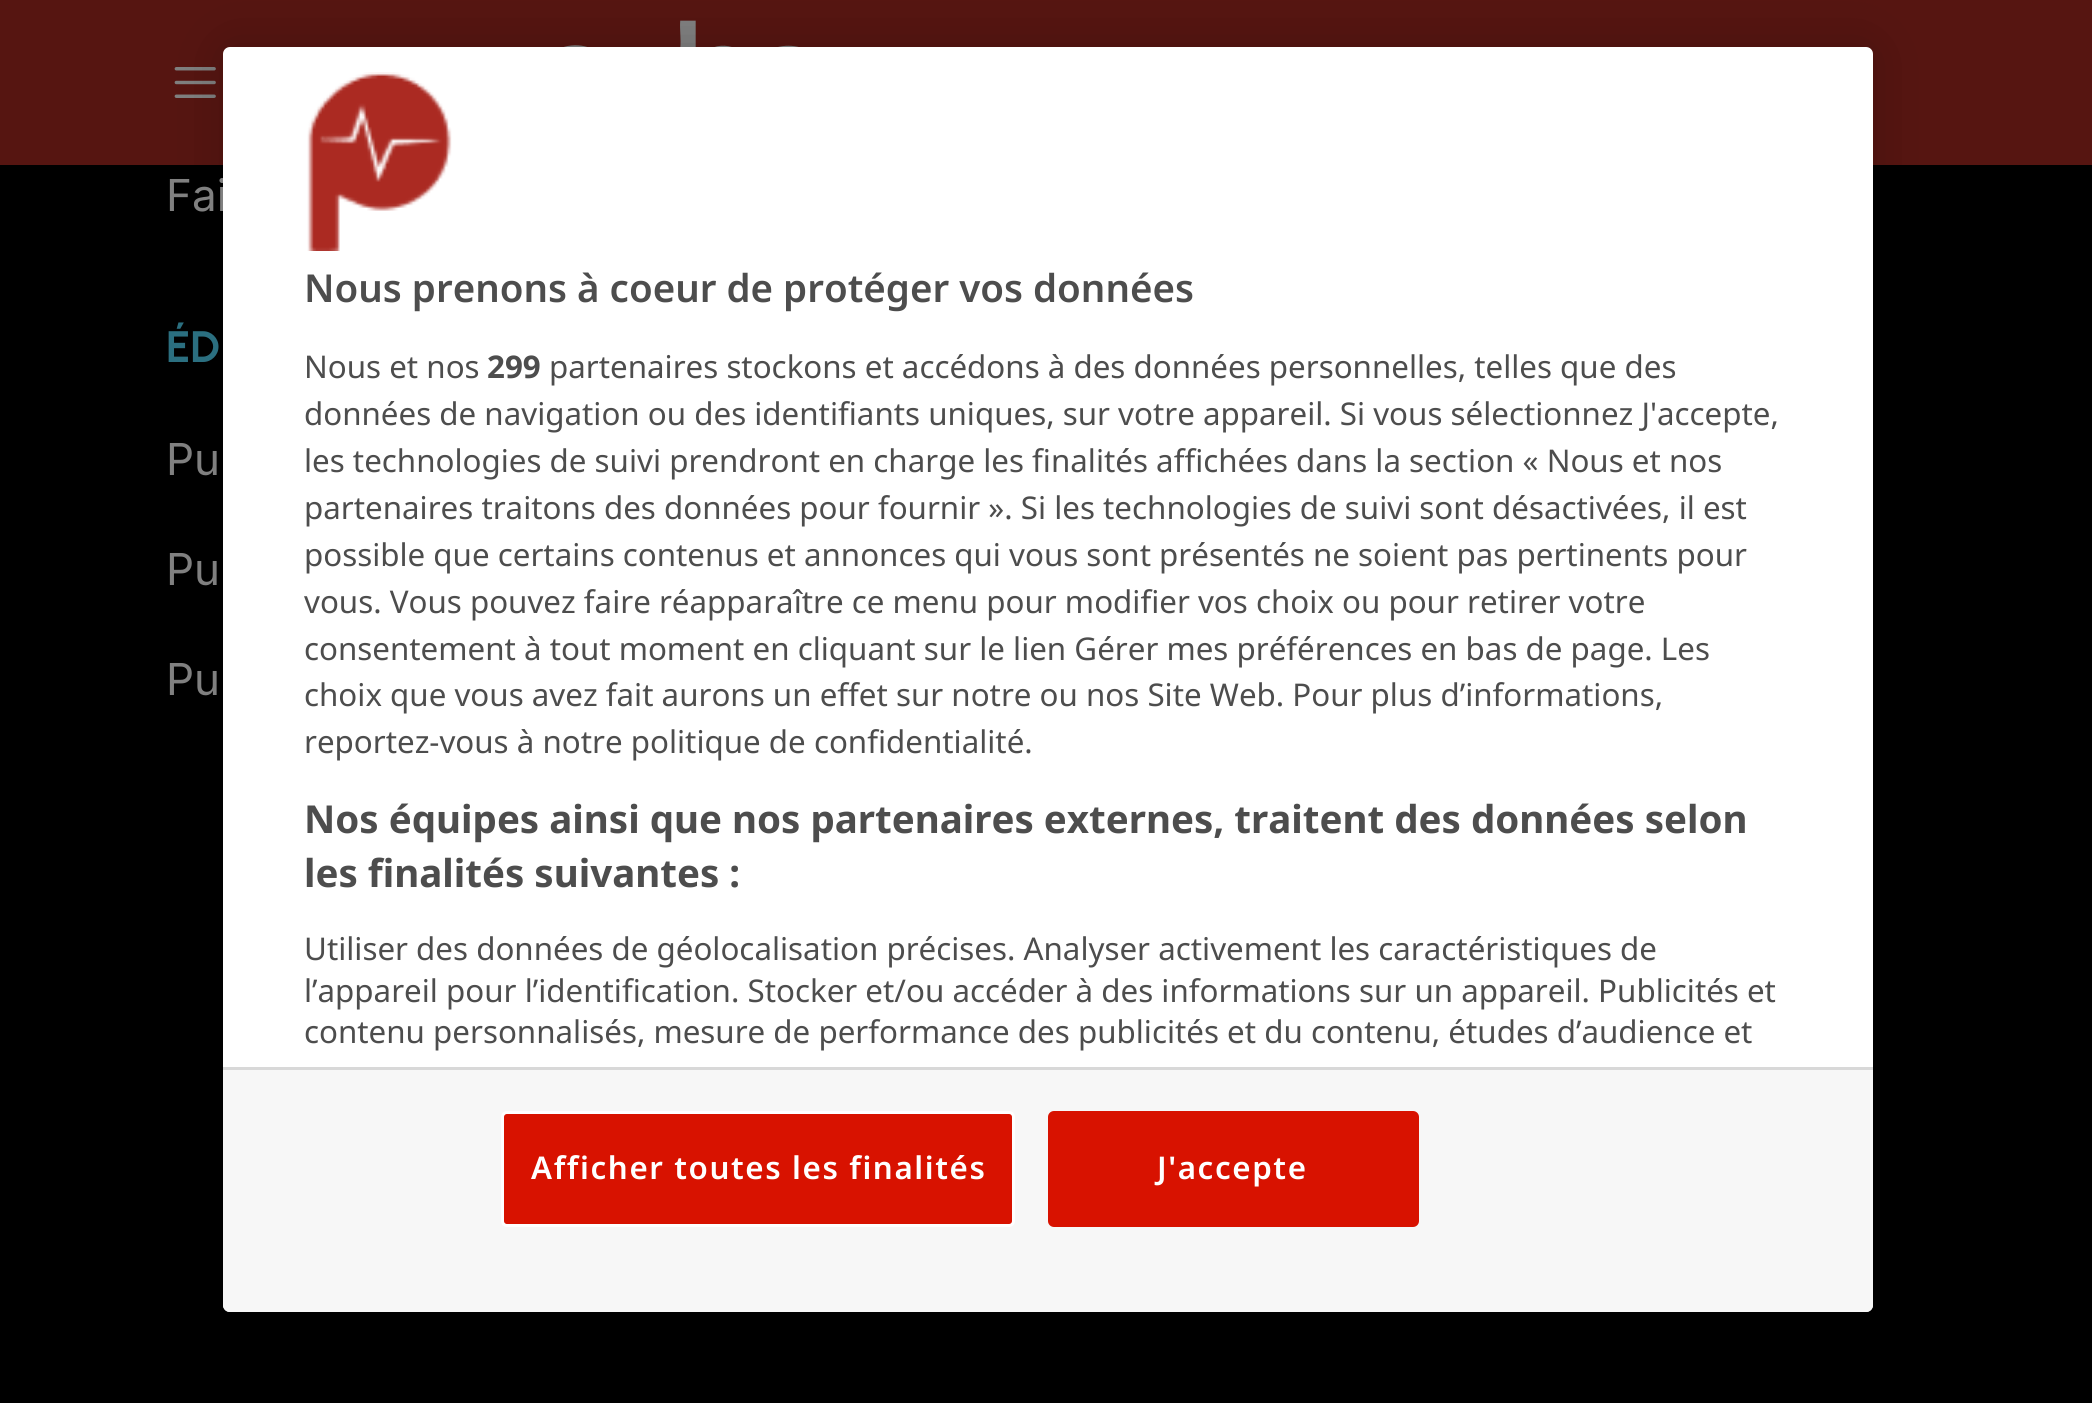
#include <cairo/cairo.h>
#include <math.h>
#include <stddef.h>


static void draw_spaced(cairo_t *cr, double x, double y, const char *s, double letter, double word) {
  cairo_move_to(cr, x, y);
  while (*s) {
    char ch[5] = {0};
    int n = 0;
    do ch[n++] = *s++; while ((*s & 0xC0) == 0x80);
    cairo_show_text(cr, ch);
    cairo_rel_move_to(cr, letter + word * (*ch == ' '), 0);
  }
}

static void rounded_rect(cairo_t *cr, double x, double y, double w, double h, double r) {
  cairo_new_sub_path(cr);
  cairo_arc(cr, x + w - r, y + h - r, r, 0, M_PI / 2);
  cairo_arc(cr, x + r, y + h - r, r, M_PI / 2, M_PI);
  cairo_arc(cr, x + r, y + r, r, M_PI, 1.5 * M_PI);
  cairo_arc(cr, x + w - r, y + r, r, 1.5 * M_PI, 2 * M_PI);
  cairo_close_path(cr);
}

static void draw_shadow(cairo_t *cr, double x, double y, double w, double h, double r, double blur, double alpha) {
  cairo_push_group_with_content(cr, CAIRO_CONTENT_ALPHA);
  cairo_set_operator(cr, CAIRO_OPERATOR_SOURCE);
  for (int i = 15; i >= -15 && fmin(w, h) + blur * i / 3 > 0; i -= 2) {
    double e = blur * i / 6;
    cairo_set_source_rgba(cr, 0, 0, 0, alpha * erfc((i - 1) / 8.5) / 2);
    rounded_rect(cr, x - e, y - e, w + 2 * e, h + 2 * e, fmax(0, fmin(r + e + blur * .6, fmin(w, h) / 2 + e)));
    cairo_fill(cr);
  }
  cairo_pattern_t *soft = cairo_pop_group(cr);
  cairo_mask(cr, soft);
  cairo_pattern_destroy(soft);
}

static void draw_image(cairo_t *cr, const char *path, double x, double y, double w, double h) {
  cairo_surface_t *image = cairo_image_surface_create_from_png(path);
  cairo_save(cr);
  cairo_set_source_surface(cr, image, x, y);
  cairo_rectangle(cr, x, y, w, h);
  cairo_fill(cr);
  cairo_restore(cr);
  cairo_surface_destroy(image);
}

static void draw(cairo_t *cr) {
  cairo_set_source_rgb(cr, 0, 0, 0);
  cairo_paint(cr);
  cairo_set_source_rgb(cr, 86 / 255.0, 21 / 255.0, 17 / 255.0);
  cairo_rectangle(cr, 0, 0, 2092, 165);
  cairo_fill(cr);
  draw_image(cr, "images/1.png", 564, 20, 235, 27);
  draw_image(cr, "images/2.png", 174, 67, 42, 31);
  cairo_set_source_rgb(cr, 0, 0, 0);
  draw_shadow(cr, 223, 47, 1650, 1265, 7, 25, 0.2);
  cairo_select_font_face(cr, "Inter", CAIRO_FONT_SLANT_NORMAL, CAIRO_FONT_WEIGHT_NORMAL);
  cairo_set_font_size(cr, 44);
  cairo_set_source_rgb(cr, 128 / 255.0, 128 / 255.0, 128 / 255.0);
  cairo_move_to(cr, 166, 211);
  cairo_show_text(cr, "Fai");
  cairo_select_font_face(cr, "Urbanist", CAIRO_FONT_SLANT_NORMAL, CAIRO_FONT_WEIGHT_BOLD);
  cairo_set_source_rgb(cr, 43 / 255.0, 111 / 255.0, 128 / 255.0);
  cairo_move_to(cr, 166, 362);
  cairo_show_text(cr, "ÉD");
  cairo_select_font_face(cr, "Inter", CAIRO_FONT_SLANT_NORMAL, CAIRO_FONT_WEIGHT_NORMAL);
  cairo_set_source_rgb(cr, 128 / 255.0, 128 / 255.0, 128 / 255.0);
  cairo_move_to(cr, 166, 475);
  cairo_show_text(cr, "Pu");
  cairo_move_to(cr, 166, 585);
  cairo_show_text(cr, "Pu");
  cairo_move_to(cr, 166, 695);
  cairo_show_text(cr, "Pu");
  cairo_set_source_rgb(cr, 1, 1, 1);
  rounded_rect(cr, 223, 47, 1650, 1265, 7);
  cairo_fill(cr);
  draw_image(cr, "images/3.png", 307, 72, 145, 179);
  cairo_select_font_face(cr, "Noto Sans SemiBold", CAIRO_FONT_SLANT_NORMAL, CAIRO_FONT_WEIGHT_NORMAL);
  cairo_set_font_size(cr, 38.5);
  cairo_set_source_rgb(cr, 77 / 255.0, 77 / 255.0, 77 / 255.0);
  cairo_move_to(cr, 304, 302);
  cairo_show_text(cr, "Nous prenons à coeur de protéger vos données");
  cairo_select_font_face(cr, "Noto Sans", CAIRO_FONT_SLANT_NORMAL, CAIRO_FONT_WEIGHT_NORMAL);
  cairo_set_font_size(cr, 31.3);
  cairo_move_to(cr, 304, 378);
  cairo_show_text(cr, "Nous et nos");
  cairo_select_font_face(cr, "Noto Sans", CAIRO_FONT_SLANT_NORMAL, CAIRO_FONT_WEIGHT_BOLD);
  cairo_move_to(cr, 487, 378);
  cairo_show_text(cr, "299");
  cairo_select_font_face(cr, "Noto Sans", CAIRO_FONT_SLANT_NORMAL, CAIRO_FONT_WEIGHT_NORMAL);
  cairo_move_to(cr, 549, 378);
  cairo_show_text(cr, "partenaires stockons et accédons à des données personnelles, telles que des");
  cairo_move_to(cr, 304, 425);
  cairo_show_text(cr, "données de navigation ou des identifiants uniques, sur votre appareil. Si vous sélectionnez J'accepte,");
  cairo_move_to(cr, 304, 472);
  cairo_show_text(cr, "les technologies de suivi prendront en charge les finalités affichées dans la section « Nous et nos");
  cairo_move_to(cr, 304, 519);
  cairo_show_text(cr, "partenaires traitons des données pour fournir ». Si les technologies de suivi sont désactivées, il est");
  cairo_move_to(cr, 304, 566);
  cairo_show_text(cr, "possible que certains contenus et annonces qui vous sont présentés ne soient pas pertinents pour");
  cairo_move_to(cr, 304, 613);
  cairo_show_text(cr, "vous. Vous pouvez faire réapparaître ce menu pour modifier vos choix ou pour retirer votre");
  cairo_move_to(cr, 304, 660);
  cairo_show_text(cr, "consentement à tout moment en cliquant sur le lien Gérer mes préférences en bas de page. Les");
  cairo_move_to(cr, 304, 706);
  cairo_show_text(cr, "choix que vous avez fait aurons un effet sur notre ou nos Site Web. Pour plus d’informations,");
  cairo_move_to(cr, 304, 753);
  cairo_show_text(cr, "reportez-vous à notre politique de confidentialité.");
  cairo_select_font_face(cr, "Noto Sans", CAIRO_FONT_SLANT_NORMAL, CAIRO_FONT_WEIGHT_BOLD);
  cairo_set_font_size(cr, 38.5);
  cairo_move_to(cr, 304, 833);
  cairo_show_text(cr, "Nos équipes ainsi que nos partenaires externes, traitent des données selon");
  cairo_move_to(cr, 304, 887);
  cairo_show_text(cr, "les finalités suivantes :");
  cairo_select_font_face(cr, "Noto Sans", CAIRO_FONT_SLANT_NORMAL, CAIRO_FONT_WEIGHT_NORMAL);
  cairo_set_font_size(cr, 31.3);
  cairo_move_to(cr, 304, 960);
  cairo_show_text(cr, "Utiliser des données de géolocalisation précises. Analyser activement les caractéristiques de");
  cairo_move_to(cr, 304, 1002);
  cairo_show_text(cr, "l’appareil pour l’identification. Stocker et/ou accéder à des informations sur un appareil. Publicités et");
  cairo_move_to(cr, 304, 1043);
  cairo_show_text(cr, "contenu personnalisés, mesure de performance des publicités et du contenu, études d’audience et");
  cairo_set_source_rgb(cr, 247 / 255.0, 247 / 255.0, 247 / 255.0);
  cairo_new_path(cr);
  cairo_move_to(cr, 223, 1067);
  cairo_line_to(cr, 1873, 1067);
  cairo_line_to(cr, 1873, 1305);
  cairo_curve_to(cr, 1873, 1309, 1870, 1312, 1866, 1312);
  cairo_line_to(cr, 230, 1312);
  cairo_curve_to(cr, 226, 1312, 223, 1309, 223, 1305);
  cairo_close_path(cr);
  cairo_fill(cr);
  cairo_set_source_rgb(cr, 216 / 255.0, 216 / 255.0, 216 / 255.0);
  cairo_rectangle(cr, 223, 1067, 1650, 3);
  cairo_fill(cr);
  cairo_set_source_rgb(cr, 216 / 255.0, 18 / 255.0, 0);
  rounded_rect(cr, 502.5, 1112.5, 511, 113, 4.5);
  cairo_fill_preserve(cr);
  cairo_set_source_rgb(cr, 1, 1, 1);
  cairo_set_line_width(cr, 3);
  cairo_stroke(cr);
  cairo_select_font_face(cr, "Noto Sans SemiBold", CAIRO_FONT_SLANT_NORMAL, CAIRO_FONT_WEIGHT_NORMAL);
  draw_spaced(cr, 531, 1179, "Afficher toutes les finalités", 1.6, 0);
  cairo_set_source_rgb(cr, 216 / 255.0, 18 / 255.0, 0);
  rounded_rect(cr, 1049.5, 1112.5, 368, 113, 4.5);
  cairo_fill_preserve(cr);
  cairo_stroke(cr);
  cairo_set_source_rgb(cr, 1, 1, 1);
  draw_spaced(cr, 1157, 1179, "J'accepte", 1.6, 0);
}

int main(void) {
  cairo_surface_t *surface = cairo_image_surface_create(CAIRO_FORMAT_RGB24, 2092, 1403);
  cairo_t *cr = cairo_create(surface);
  cairo_font_options_t *options = cairo_font_options_create();
  cairo_font_options_set_hint_metrics(options, CAIRO_HINT_METRICS_OFF);
  cairo_font_options_set_hint_style(options, CAIRO_HINT_STYLE_NONE);
  cairo_set_font_options(cr, options);
  cairo_set_miter_limit(cr, 4);
  draw(cr);
  cairo_surface_write_to_png(surface, "out.png");
  cairo_font_options_destroy(options);
  cairo_destroy(cr);
  cairo_surface_destroy(surface);
  return 0;
}
